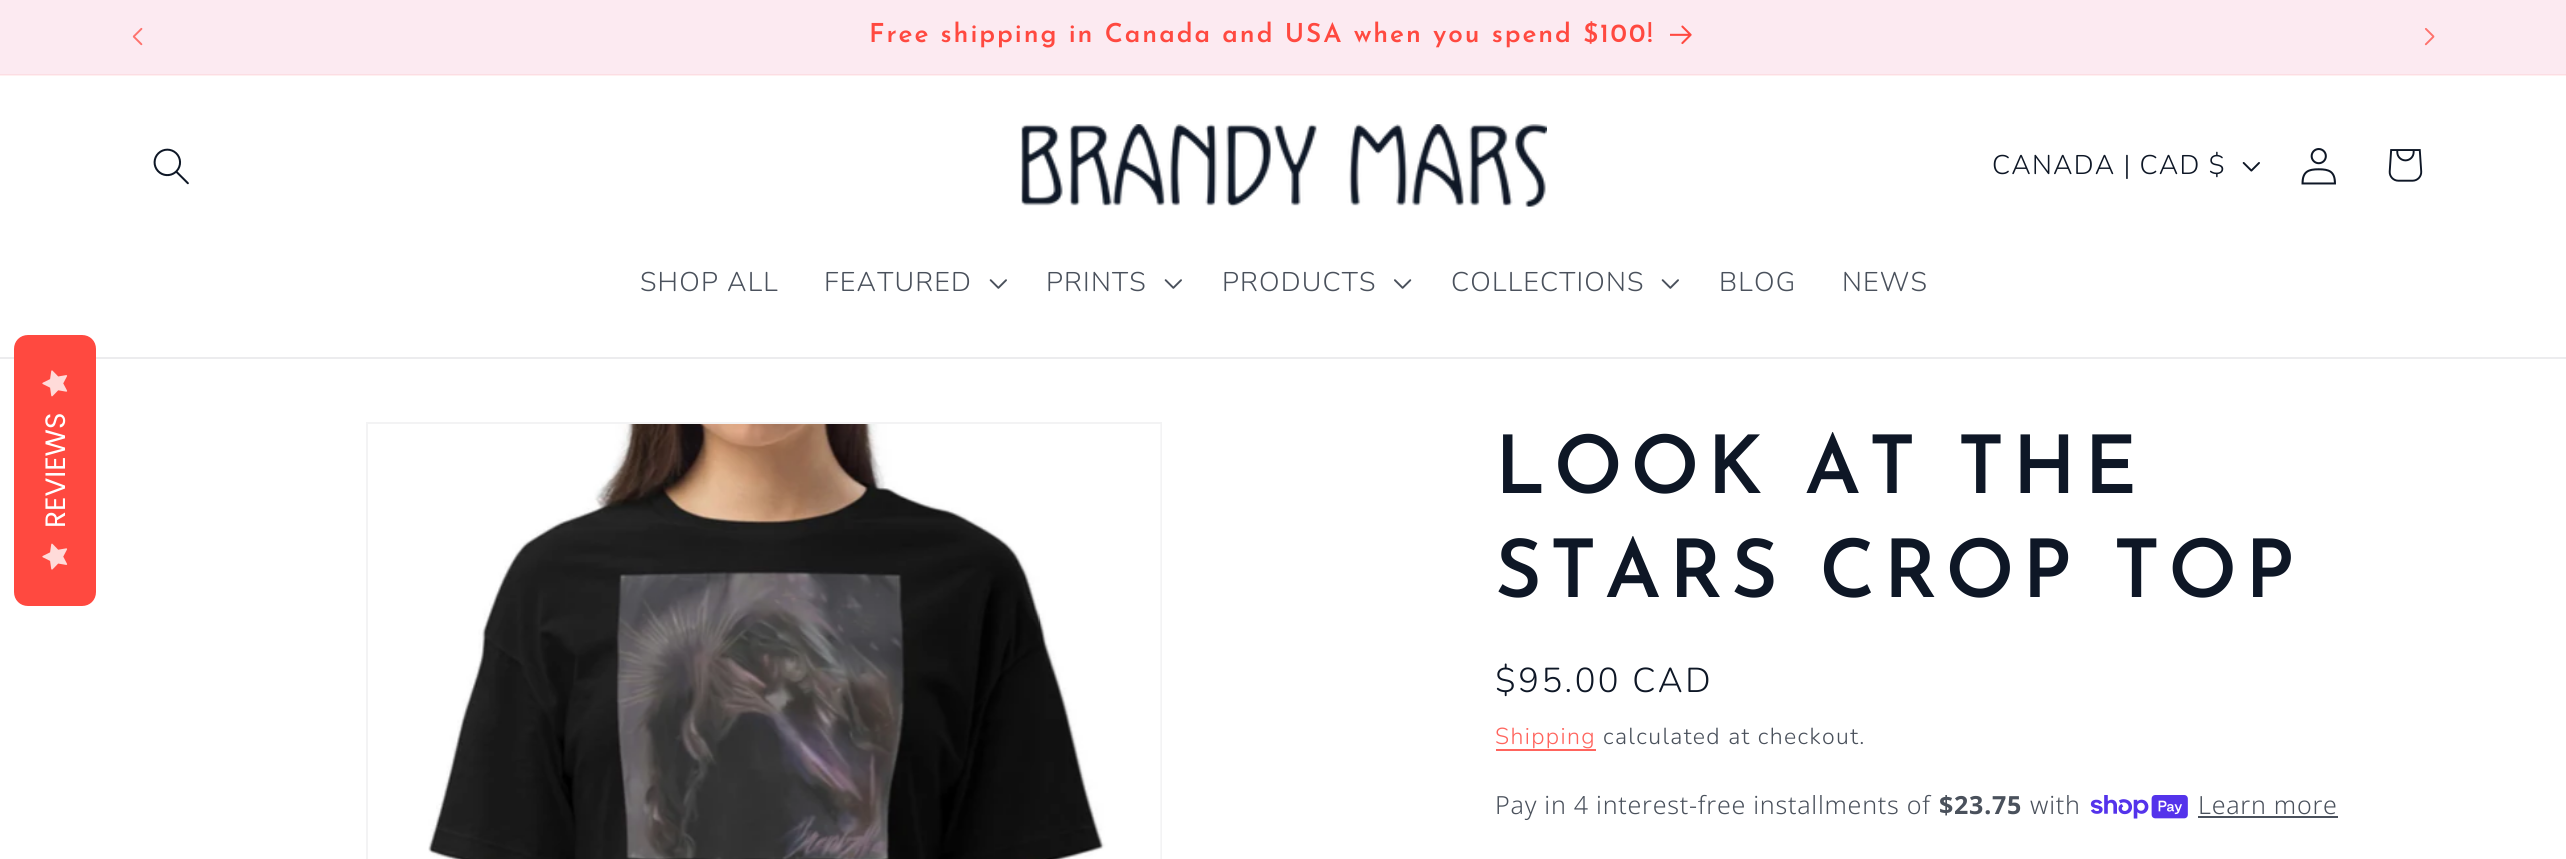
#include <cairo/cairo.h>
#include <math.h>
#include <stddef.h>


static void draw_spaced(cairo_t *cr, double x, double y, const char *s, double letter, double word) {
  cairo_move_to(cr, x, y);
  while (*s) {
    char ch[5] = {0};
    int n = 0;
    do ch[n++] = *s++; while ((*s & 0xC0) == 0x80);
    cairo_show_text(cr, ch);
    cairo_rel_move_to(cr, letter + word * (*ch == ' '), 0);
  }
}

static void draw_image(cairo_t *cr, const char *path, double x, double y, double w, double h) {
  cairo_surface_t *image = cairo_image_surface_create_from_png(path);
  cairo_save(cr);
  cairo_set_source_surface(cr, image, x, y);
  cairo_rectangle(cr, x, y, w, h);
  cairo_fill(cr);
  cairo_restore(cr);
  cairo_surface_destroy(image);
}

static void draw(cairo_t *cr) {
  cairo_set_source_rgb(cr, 1, 1, 1);
  cairo_paint(cr);
  cairo_set_source_rgb(cr, 1, 240 / 255.0, 240 / 255.0);
  cairo_rectangle(cr, 0, 75, 2566, 1);
  cairo_fill(cr);
  cairo_set_source_rgb(cr, 252 / 255.0, 234 / 255.0, 241 / 255.0);
  cairo_rectangle(cr, 0, 0, 2566, 74);
  cairo_fill(cr);
  cairo_set_source_rgb(cr, 252 / 255.0, 221 / 255.0, 227 / 255.0);
  cairo_rectangle(cr, 0, 74, 2566, 1);
  cairo_fill(cr);
  draw_image(cr, "images/1.png", 132, 27, 11, 19);
  draw_image(cr, "images/2.png", 1670, 25, 22, 20);
  draw_image(cr, "images/3.png", 2424, 28, 11, 18);
  cairo_set_source_rgb(cr, 236 / 255.0, 236 / 255.0, 238 / 255.0);
  cairo_rectangle(cr, 0, 357, 2566, 2);
  cairo_fill(cr);
  draw_image(cr, "images/4.png", 153, 148, 36, 37);
  draw_image(cr, "images/5.png", 1021, 124, 526, 83);
  draw_image(cr, "images/6.png", 2242, 162, 18, 10);
  draw_image(cr, "images/7.png", 2301, 148, 35, 37);
  draw_image(cr, "images/8.png", 2388, 149, 35, 33);
  draw_image(cr, "images/9.png", 989, 279, 18, 10);
  draw_image(cr, "images/9.png", 1164, 279, 18, 10);
  draw_image(cr, "images/10.png", 1394, 279, 18, 10);
  draw_image(cr, "images/9.png", 1661, 279, 18, 10);
  cairo_set_source_rgb(cr, 1, 73 / 255.0, 64 / 255.0);
  cairo_new_path(cr);
  cairo_move_to(cr, 14, 592);
  cairo_line_to(cr, 14, 349);
  cairo_curve_to(cr, 14, 341, 20, 335, 28, 335);
  cairo_line_to(cr, 82, 335);
  cairo_curve_to(cr, 90, 335, 96, 341, 96, 349);
  cairo_line_to(cr, 96, 592);
  cairo_curve_to(cr, 96, 600, 90, 606, 82, 606);
  cairo_line_to(cr, 28, 606);
  cairo_curve_to(cr, 20, 606, 14, 600, 14, 592);
  cairo_close_path(cr);
  cairo_fill(cr);
  draw_image(cr, "images/11.png", 42, 370, 26, 27);
  draw_image(cr, "images/12.png", 42, 543, 26, 27);
  cairo_rectangle(cr, 367, 423, 794, 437);
  cairo_set_source_rgb(cr, 243 / 255.0, 243 / 255.0, 244 / 255.0);
  cairo_stroke(cr);
  draw_image(cr, "images/13.png", 428, 424, 733, 435);
  cairo_set_source_rgb(cr, 1, 100 / 255.0, 93 / 255.0);
  cairo_rectangle(cr, 1496, 749, 100, 2);
  cairo_fill(cr);
  draw_image(cr, "images/14.png", 2090, 795, 98, 24);
  cairo_set_source_rgb(cr, 74 / 255.0, 81 / 255.0, 92 / 255.0);
  cairo_rectangle(cr, 2198, 816, 140, 2);
  cairo_fill(cr);
  cairo_select_font_face(cr, "Josefin Sans SemiBold", CAIRO_FONT_SLANT_NORMAL, CAIRO_FONT_WEIGHT_NORMAL);
  cairo_set_font_size(cr, 26.15);
  cairo_set_source_rgb(cr, 1, 73 / 255.0, 64 / 255.0);
  draw_spaced(cr, 869, 42, "Free shipping in Canada and USA when you spend $100!", 1.93, 0);
  cairo_select_font_face(cr, "Nunito Light", CAIRO_FONT_SLANT_NORMAL, CAIRO_FONT_WEIGHT_NORMAL);
  cairo_set_font_size(cr, 27);
  cairo_set_source_rgb(cr, 14 / 255.0, 23 / 255.0, 38 / 255.0);
  draw_spaced(cr, 1992, 174, "CANADA | CAD $", 1.2, 0);
  cairo_set_source_rgb(cr, 74 / 255.0, 81 / 255.0, 92 / 255.0);
  draw_spaced(cr, 640, 291, "SHOP ALL", 1.2, 0);
  draw_spaced(cr, 824, 291, "FEATURED", 1.2, 0);
  draw_spaced(cr, 1046, 291, "PRINTS", 1.2, 0);
  draw_spaced(cr, 1222, 291, "PRODUCTS", 1.2, 0);
  draw_spaced(cr, 1451, 291, "COLLECTIONS", 1.2, 0);
  draw_spaced(cr, 1719, 291, "BLOG", 1.2, 0);
  draw_spaced(cr, 1842, 291, "NEWS", 1.2, 0);
  cairo_select_font_face(cr, "Poppins", CAIRO_FONT_SLANT_NORMAL, CAIRO_FONT_WEIGHT_NORMAL);
  cairo_set_font_size(cr, 28);
  cairo_set_source_rgb(cr, 1, 1, 1);
  cairo_save(cr);
  cairo_translate(cr, 65, 528);
  cairo_rotate(cr, -90 * M_PI / 180);
  cairo_move_to(cr, 0, 0);
  cairo_show_text(cr, "REVIEWS");
  cairo_restore(cr);
  cairo_select_font_face(cr, "Josefin Sans SemiBold", CAIRO_FONT_SLANT_NORMAL, CAIRO_FONT_WEIGHT_NORMAL);
  cairo_set_font_size(cr, 80.5);
  cairo_set_source_rgb(cr, 14 / 255.0, 23 / 255.0, 38 / 255.0);
  draw_spaced(cr, 1495, 493, "LOOK AT THE", 8, 0);
  draw_spaced(cr, 1495, 597, "STARS CROP TOP", 8, 0);
  cairo_select_font_face(cr, "Nunito Light", CAIRO_FONT_SLANT_NORMAL, CAIRO_FONT_WEIGHT_NORMAL);
  cairo_set_font_size(cr, 34.5);
  draw_spaced(cr, 1495, 692, "$95.00 CAD", 2.5, 0);
  cairo_set_font_size(cr, 23.1);
  cairo_set_source_rgb(cr, 1, 100 / 255.0, 93 / 255.0);
  draw_spaced(cr, 1495, 744, "Shipping", 1.35, 0);
  cairo_set_source_rgb(cr, 74 / 255.0, 81 / 255.0, 92 / 255.0);
  draw_spaced(cr, 1603, 744, "calculated at checkout.", 1.35, 0);
  cairo_select_font_face(cr, "Noto Sans Light", CAIRO_FONT_SLANT_NORMAL, CAIRO_FONT_WEIGHT_NORMAL);
  cairo_set_font_size(cr, 25);
  draw_spaced(cr, 1495, 814, "Pay in 4 interest-free installments of", 0.75, 0);
  cairo_select_font_face(cr, "Noto Sans", CAIRO_FONT_SLANT_NORMAL, CAIRO_FONT_WEIGHT_BOLD);
  draw_spaced(cr, 1939, 814, "$23.75", 0.75, 0);
  cairo_select_font_face(cr, "Noto Sans Light", CAIRO_FONT_SLANT_NORMAL, CAIRO_FONT_WEIGHT_NORMAL);
  draw_spaced(cr, 2030, 814, "with", 0.75, 0);
  draw_spaced(cr, 2198, 814, "Learn more", 0.75, 0);
}

int main(void) {
  cairo_surface_t *surface = cairo_image_surface_create(CAIRO_FORMAT_RGB24, 2566, 859);
  cairo_t *cr = cairo_create(surface);
  cairo_font_options_t *options = cairo_font_options_create();
  cairo_font_options_set_hint_metrics(options, CAIRO_HINT_METRICS_OFF);
  cairo_font_options_set_hint_style(options, CAIRO_HINT_STYLE_NONE);
  cairo_set_font_options(cr, options);
  cairo_set_miter_limit(cr, 4);
  draw(cr);
  cairo_surface_write_to_png(surface, "out.png");
  cairo_font_options_destroy(options);
  cairo_destroy(cr);
  cairo_surface_destroy(surface);
  return 0;
}
